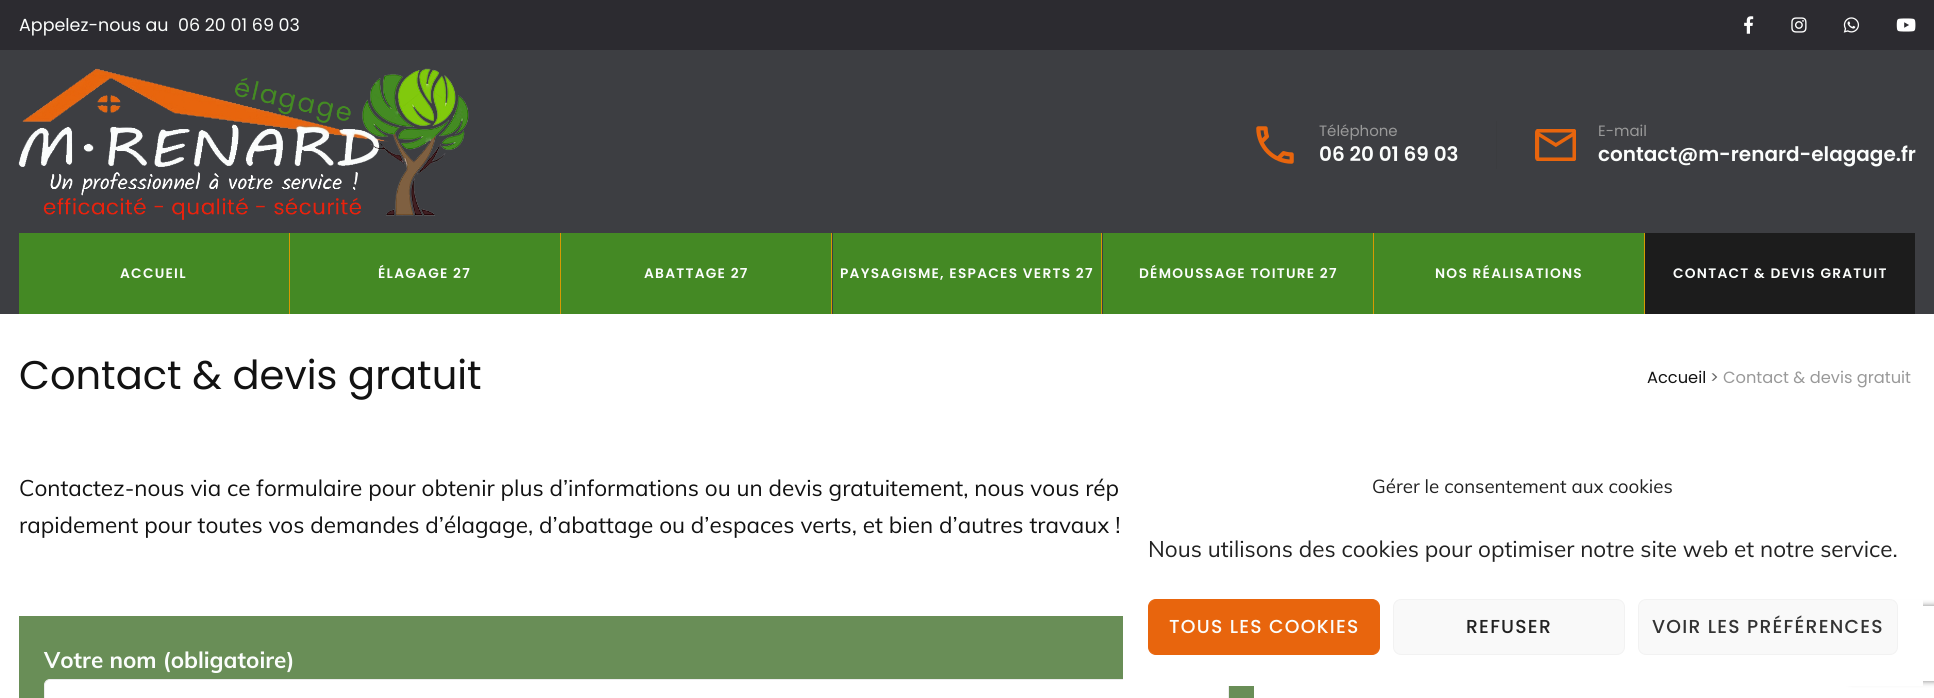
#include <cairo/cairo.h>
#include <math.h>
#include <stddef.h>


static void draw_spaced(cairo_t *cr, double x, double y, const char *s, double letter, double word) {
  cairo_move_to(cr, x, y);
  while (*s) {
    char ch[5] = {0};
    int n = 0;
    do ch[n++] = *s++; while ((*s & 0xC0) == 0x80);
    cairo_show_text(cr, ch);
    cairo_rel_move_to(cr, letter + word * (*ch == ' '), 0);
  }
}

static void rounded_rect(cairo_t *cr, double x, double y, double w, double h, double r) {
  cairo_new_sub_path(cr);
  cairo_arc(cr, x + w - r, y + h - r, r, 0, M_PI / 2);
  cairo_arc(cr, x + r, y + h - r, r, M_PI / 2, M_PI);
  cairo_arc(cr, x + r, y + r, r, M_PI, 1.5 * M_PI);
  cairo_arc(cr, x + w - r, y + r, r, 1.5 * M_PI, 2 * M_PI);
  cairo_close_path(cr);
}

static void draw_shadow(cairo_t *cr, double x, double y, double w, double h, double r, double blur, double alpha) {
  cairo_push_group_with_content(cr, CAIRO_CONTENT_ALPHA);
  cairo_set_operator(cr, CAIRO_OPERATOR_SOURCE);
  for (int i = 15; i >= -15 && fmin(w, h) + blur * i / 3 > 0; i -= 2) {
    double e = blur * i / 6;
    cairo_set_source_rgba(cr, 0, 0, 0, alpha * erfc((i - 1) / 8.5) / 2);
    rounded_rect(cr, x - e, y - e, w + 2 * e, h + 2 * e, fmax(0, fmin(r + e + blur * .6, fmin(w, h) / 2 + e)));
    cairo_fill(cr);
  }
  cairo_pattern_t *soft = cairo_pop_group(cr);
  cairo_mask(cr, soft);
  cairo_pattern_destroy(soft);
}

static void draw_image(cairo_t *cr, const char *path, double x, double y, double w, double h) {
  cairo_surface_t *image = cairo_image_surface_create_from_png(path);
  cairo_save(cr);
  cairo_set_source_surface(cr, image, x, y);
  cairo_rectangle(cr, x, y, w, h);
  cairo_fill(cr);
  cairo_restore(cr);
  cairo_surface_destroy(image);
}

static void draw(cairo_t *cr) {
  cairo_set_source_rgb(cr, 1, 1, 1);
  cairo_paint(cr);
  cairo_set_source_rgb(cr, 61 / 255.0, 62 / 255.0, 66 / 255.0);
  cairo_rectangle(cr, 0, 50, 1934, 264);
  cairo_fill(cr);
  cairo_set_source_rgb(cr, 44 / 255.0, 43 / 255.0, 48 / 255.0);
  cairo_rectangle(cr, 0, 0, 1934, 50);
  cairo_fill(cr);
  draw_image(cr, "images/1.png", 1744, 16, 10, 18);
  draw_image(cr, "images/2.png", 1791, 17, 16, 16);
  draw_image(cr, "images/3.png", 1843, 17, 17, 16);
  draw_image(cr, "images/4.png", 1896, 18, 20, 14);
  draw_image(cr, "images/5.png", 18, 68, 451, 152);
  draw_image(cr, "images/6.png", 1256, 126, 38, 38);
  cairo_set_source_rgb(cr, 59 / 255.0, 60 / 255.0, 63 / 255.0);
  cairo_rectangle(cr, 1496, 121, 1, 48);
  cairo_fill(cr);
  draw_image(cr, "images/7.png", 1535, 129, 41, 32);
  cairo_set_source_rgb(cr, 214 / 255.0, 154 / 255.0, 2 / 255.0);
  cairo_rectangle(cr, 289, 233, 1, 81);
  cairo_fill(cr);
  cairo_set_source_rgb(cr, 68 / 255.0, 137 / 255.0, 36 / 255.0);
  cairo_rectangle(cr, 19, 233, 270, 81);
  cairo_fill(cr);
  cairo_set_source_rgb(cr, 214 / 255.0, 154 / 255.0, 2 / 255.0);
  cairo_rectangle(cr, 560, 233, 1, 81);
  cairo_fill(cr);
  cairo_set_source_rgb(cr, 68 / 255.0, 137 / 255.0, 36 / 255.0);
  cairo_rectangle(cr, 290, 233, 270, 81);
  cairo_fill(cr);
  cairo_set_source_rgb(cr, 214 / 255.0, 154 / 255.0, 2 / 255.0);
  cairo_rectangle(cr, 831, 233, 1, 81);
  cairo_fill(cr);
  cairo_set_source_rgb(cr, 68 / 255.0, 137 / 255.0, 36 / 255.0);
  cairo_rectangle(cr, 561, 233, 270, 81);
  cairo_fill(cr);
  cairo_set_source_rgb(cr, 214 / 255.0, 154 / 255.0, 2 / 255.0);
  cairo_rectangle(cr, 1101, 233, 1, 81);
  cairo_fill(cr);
  cairo_set_source_rgb(cr, 68 / 255.0, 137 / 255.0, 36 / 255.0);
  cairo_rectangle(cr, 833, 233, 268, 81);
  cairo_fill(cr);
  cairo_set_source_rgb(cr, 214 / 255.0, 154 / 255.0, 2 / 255.0);
  cairo_rectangle(cr, 1373, 233, 1, 81);
  cairo_fill(cr);
  cairo_set_source_rgb(cr, 68 / 255.0, 137 / 255.0, 36 / 255.0);
  cairo_rectangle(cr, 1103, 233, 270, 81);
  cairo_fill(cr);
  cairo_set_source_rgb(cr, 214 / 255.0, 154 / 255.0, 2 / 255.0);
  cairo_rectangle(cr, 1644, 233, 1, 81);
  cairo_fill(cr);
  cairo_set_source_rgb(cr, 68 / 255.0, 137 / 255.0, 36 / 255.0);
  cairo_rectangle(cr, 1374, 233, 270, 81);
  cairo_fill(cr);
  cairo_set_source_rgb(cr, 28 / 255.0, 28 / 255.0, 28 / 255.0);
  cairo_rectangle(cr, 1645, 233, 270, 81);
  cairo_fill(cr);
  cairo_set_source_rgb(cr, 105 / 255.0, 142 / 255.0, 87 / 255.0);
  cairo_rectangle(cr, 19, 616, 1235, 82);
  cairo_fill(cr);
  cairo_set_source_rgb(cr, 1, 1, 1);
  rounded_rect(cr, 44.5, 679.5, 1184, 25, 5.5);
  cairo_fill_preserve(cr);
  cairo_set_source_rgb(cr, 236 / 255.0, 236 / 255.0, 236 / 255.0);
  cairo_set_line_width(cr, 1);
  cairo_stroke(cr);
  cairo_save(cr);
  cairo_set_fill_rule(cr, CAIRO_FILL_RULE_EVEN_ODD);
  cairo_new_path(cr);
  cairo_move_to(cr, 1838, 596);
  cairo_line_to(cr, 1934, 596);
  cairo_line_to(cr, 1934, 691);
  cairo_line_to(cr, 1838, 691);
  cairo_close_path(cr);
  cairo_move_to(cr, 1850.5, 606);
  cairo_line_to(cr, 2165.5, 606);
  cairo_curve_to(cr, 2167, 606, 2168, 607, 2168, 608.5);
  cairo_line_to(cr, 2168, 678.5);
  cairo_curve_to(cr, 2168, 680, 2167, 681, 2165.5, 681);
  cairo_line_to(cr, 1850.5, 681);
  cairo_curve_to(cr, 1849, 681, 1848, 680, 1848, 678.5);
  cairo_line_to(cr, 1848, 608.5);
  cairo_curve_to(cr, 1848, 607, 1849, 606, 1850.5, 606);
  cairo_close_path(cr);
  cairo_clip(cr);
  cairo_set_source_rgb(cr, 128 / 255.0, 128 / 255.0, 128 / 255.0);
  draw_shadow(cr, 1848, 606, 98, 75, 2.5, 3, 1);
  cairo_restore(cr);
  cairo_set_source_rgb(cr, 1, 1, 1);
  cairo_rectangle(cr, 1123, 600, 800, 86);
  cairo_fill(cr);
  cairo_set_source_rgb(cr, 232 / 255.0, 101 / 255.0, 13 / 255.0);
  rounded_rect(cr, 1148.5, 599.5, 231, 55, 7.5);
  cairo_fill_preserve(cr);
  cairo_stroke(cr);
  cairo_set_source_rgb(cr, 249 / 255.0, 249 / 255.0, 249 / 255.0);
  rounded_rect(cr, 1393.5, 599.5, 231, 55, 7.5);
  cairo_fill_preserve(cr);
  cairo_set_source_rgb(cr, 242 / 255.0, 242 / 255.0, 242 / 255.0);
  cairo_stroke(cr);
  cairo_set_source_rgb(cr, 249 / 255.0, 249 / 255.0, 249 / 255.0);
  rounded_rect(cr, 1638.5, 599.5, 259, 55, 7.5);
  cairo_fill_preserve(cr);
  cairo_set_source_rgb(cr, 242 / 255.0, 242 / 255.0, 242 / 255.0);
  cairo_stroke(cr);
  cairo_select_font_face(cr, "Poppins", CAIRO_FONT_SLANT_NORMAL, CAIRO_FONT_WEIGHT_NORMAL);
  cairo_set_font_size(cr, 17.5);
  cairo_set_source_rgb(cr, 251 / 255.0, 253 / 255.0, 252 / 255.0);
  cairo_move_to(cr, 19, 31);
  cairo_show_text(cr, "Appelez-nous au");
  cairo_move_to(cr, 178, 31);
  cairo_show_text(cr, "06 20 01 69 03");
  cairo_set_font_size(cr, 15);
  cairo_set_source_rgb(cr, 153 / 255.0, 153 / 255.0, 153 / 255.0);
  cairo_move_to(cr, 1319, 136);
  cairo_show_text(cr, "Téléphone");
  cairo_select_font_face(cr, "Poppins SemiBold", CAIRO_FONT_SLANT_NORMAL, CAIRO_FONT_WEIGHT_NORMAL);
  cairo_set_font_size(cr, 20);
  cairo_set_source_rgb(cr, 251 / 255.0, 253 / 255.0, 252 / 255.0);
  cairo_move_to(cr, 1319, 161);
  cairo_show_text(cr, "06 20 01 69 03");
  cairo_select_font_face(cr, "Poppins", CAIRO_FONT_SLANT_NORMAL, CAIRO_FONT_WEIGHT_NORMAL);
  cairo_set_font_size(cr, 15);
  cairo_set_source_rgb(cr, 153 / 255.0, 153 / 255.0, 153 / 255.0);
  cairo_move_to(cr, 1598, 136);
  cairo_show_text(cr, "E-mail");
  cairo_select_font_face(cr, "Poppins SemiBold", CAIRO_FONT_SLANT_NORMAL, CAIRO_FONT_WEIGHT_NORMAL);
  cairo_set_font_size(cr, 20);
  cairo_set_source_rgb(cr, 251 / 255.0, 253 / 255.0, 252 / 255.0);
  cairo_move_to(cr, 1598, 161);
  cairo_show_text(cr, "contact@m-renard-elagage.fr");
  cairo_set_font_size(cr, 13.75);
  draw_spaced(cr, 120, 278, "ACCUEIL", 1.25, 0);
  draw_spaced(cr, 378, 278, "ÉLAGAGE 27", 1.25, 0);
  draw_spaced(cr, 644, 278, "ABATTAGE 27", 1.25, 0);
  draw_spaced(cr, 840, 278, "PAYSAGISME, ESPACES VERTS 27", 1.25, 0);
  draw_spaced(cr, 1139, 278, "DÉMOUSSAGE TOITURE 27", 1.25, 0);
  draw_spaced(cr, 1435, 278, "NOS RÉALISATIONS", 1.25, 0);
  draw_spaced(cr, 1673, 278, "CONTACT & DEVIS GRATUIT", 1.25, 0);
  cairo_select_font_face(cr, "Poppins", CAIRO_FONT_SLANT_NORMAL, CAIRO_FONT_WEIGHT_NORMAL);
  cairo_set_font_size(cr, 40);
  cairo_set_source_rgb(cr, 18 / 255.0, 18 / 255.0, 18 / 255.0);
  cairo_move_to(cr, 19, 389);
  cairo_show_text(cr, "Contact & devis gratuit");
  cairo_set_font_size(cr, 16.25);
  cairo_move_to(cr, 1647, 383);
  cairo_show_text(cr, "Accueil");
  cairo_set_source_rgb(cr, 102 / 255.0, 102 / 255.0, 102 / 255.0);
  cairo_move_to(cr, 1710, 383);
  cairo_show_text(cr, ">");
  cairo_set_source_rgb(cr, 153 / 255.0, 153 / 255.0, 153 / 255.0);
  cairo_move_to(cr, 1723, 383);
  cairo_show_text(cr, "Contact & devis gratuit");
  cairo_select_font_face(cr, "Muli", CAIRO_FONT_SLANT_NORMAL, CAIRO_FONT_WEIGHT_NORMAL);
  cairo_set_font_size(cr, 22.5);
  cairo_set_source_rgb(cr, 18 / 255.0, 18 / 255.0, 18 / 255.0);
  cairo_move_to(cr, 19, 496);
  cairo_show_text(cr, "Contactez-nous via ce formulaire pour obtenir plus d’informations ou un devis gratuitement, nous vous rép");
  cairo_move_to(cr, 19, 533);
  cairo_show_text(cr, "rapidement pour toutes vos demandes d’élagage, d’abattage ou d’espaces verts, et bien d’autres travaux !");
  cairo_select_font_face(cr, "Muli", CAIRO_FONT_SLANT_NORMAL, CAIRO_FONT_WEIGHT_BOLD);
  cairo_set_source_rgb(cr, 251 / 255.0, 253 / 255.0, 252 / 255.0);
  cairo_move_to(cr, 44, 668);
  cairo_show_text(cr, "Votre nom (obligatoire)");
  cairo_select_font_face(cr, "Muli", CAIRO_FONT_SLANT_NORMAL, CAIRO_FONT_WEIGHT_NORMAL);
  cairo_set_font_size(cr, 18.75);
  cairo_set_source_rgb(cr, 34 / 255.0, 34 / 255.0, 34 / 255.0);
  cairo_move_to(cr, 1372, 493);
  cairo_show_text(cr, "Gérer le consentement aux cookies");
  cairo_set_font_size(cr, 22.5);
  cairo_move_to(cr, 1148, 557);
  cairo_show_text(cr, "Nous utilisons des cookies pour optimiser notre site web et notre service.");
  cairo_select_font_face(cr, "Poppins Medium", CAIRO_FONT_SLANT_NORMAL, CAIRO_FONT_WEIGHT_NORMAL);
  cairo_set_font_size(cr, 18.75);
  cairo_set_source_rgb(cr, 251 / 255.0, 253 / 255.0, 252 / 255.0);
  draw_spaced(cr, 1169, 633, "TOUS LES COOKIES", 1.25, 0);
  cairo_set_source_rgb(cr, 34 / 255.0, 34 / 255.0, 34 / 255.0);
  draw_spaced(cr, 1466, 633, "REFUSER", 1.25, 0);
  cairo_set_source_rgb(cr, 51 / 255.0, 51 / 255.0, 51 / 255.0);
  draw_spaced(cr, 1652, 633, "VOIR LES PRÉFÉRENCES", 1.25, 0);
}

int main(void) {
  cairo_surface_t *surface = cairo_image_surface_create(CAIRO_FORMAT_RGB24, 1934, 698);
  cairo_t *cr = cairo_create(surface);
  cairo_font_options_t *options = cairo_font_options_create();
  cairo_font_options_set_hint_metrics(options, CAIRO_HINT_METRICS_OFF);
  cairo_font_options_set_hint_style(options, CAIRO_HINT_STYLE_NONE);
  cairo_set_font_options(cr, options);
  cairo_set_miter_limit(cr, 4);
  draw(cr);
  cairo_surface_write_to_png(surface, "out.png");
  cairo_font_options_destroy(options);
  cairo_destroy(cr);
  cairo_surface_destroy(surface);
  return 0;
}
